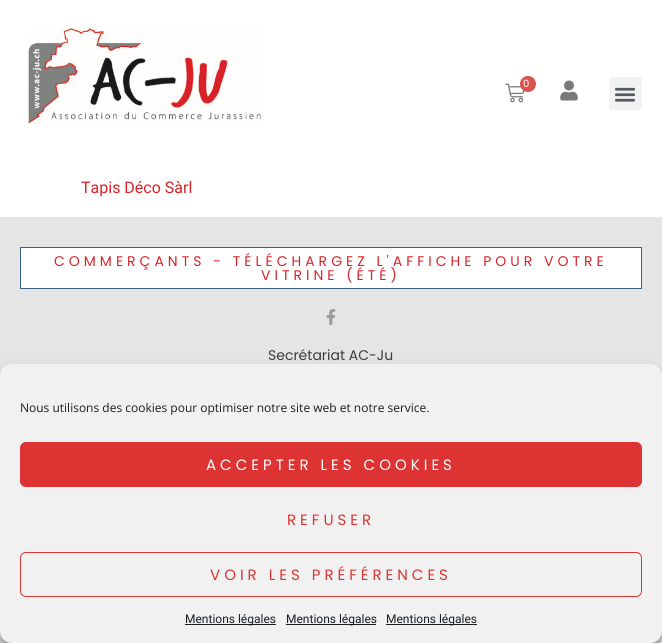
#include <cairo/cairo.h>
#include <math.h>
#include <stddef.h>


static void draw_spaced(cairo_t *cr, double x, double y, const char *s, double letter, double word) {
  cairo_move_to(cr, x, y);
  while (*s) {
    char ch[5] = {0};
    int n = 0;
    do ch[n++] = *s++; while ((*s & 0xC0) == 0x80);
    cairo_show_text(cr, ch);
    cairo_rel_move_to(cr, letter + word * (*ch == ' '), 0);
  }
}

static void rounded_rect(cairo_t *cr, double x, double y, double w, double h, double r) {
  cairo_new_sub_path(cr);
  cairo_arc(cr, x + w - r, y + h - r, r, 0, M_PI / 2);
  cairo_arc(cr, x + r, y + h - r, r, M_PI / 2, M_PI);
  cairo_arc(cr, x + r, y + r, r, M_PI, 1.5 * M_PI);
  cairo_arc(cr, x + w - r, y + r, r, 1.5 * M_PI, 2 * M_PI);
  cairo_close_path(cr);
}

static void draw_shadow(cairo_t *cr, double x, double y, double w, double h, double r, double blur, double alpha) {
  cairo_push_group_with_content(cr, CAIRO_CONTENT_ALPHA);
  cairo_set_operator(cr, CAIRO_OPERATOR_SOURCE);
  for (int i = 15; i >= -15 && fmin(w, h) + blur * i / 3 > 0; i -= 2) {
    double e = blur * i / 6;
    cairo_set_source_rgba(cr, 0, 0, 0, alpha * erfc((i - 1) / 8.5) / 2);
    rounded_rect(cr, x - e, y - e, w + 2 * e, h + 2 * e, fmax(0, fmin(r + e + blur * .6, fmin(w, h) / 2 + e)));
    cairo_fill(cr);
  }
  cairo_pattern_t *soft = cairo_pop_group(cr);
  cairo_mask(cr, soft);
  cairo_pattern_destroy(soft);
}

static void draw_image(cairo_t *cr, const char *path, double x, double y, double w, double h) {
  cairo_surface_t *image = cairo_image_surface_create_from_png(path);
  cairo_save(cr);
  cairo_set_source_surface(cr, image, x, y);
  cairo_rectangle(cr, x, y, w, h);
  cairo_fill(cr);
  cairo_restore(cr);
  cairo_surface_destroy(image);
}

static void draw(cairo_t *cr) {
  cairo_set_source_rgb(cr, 1, 1, 1);
  cairo_paint(cr);
  draw_image(cr, "images/1.png", 27, 27, 235, 97);
  draw_image(cr, "images/2.png", 505, 83, 20, 20);
  cairo_set_source_rgb(cr, 217 / 255.0, 83 / 255.0, 79 / 255.0);
  cairo_arc(cr, 528, 84, 8, 0, 2 * M_PI);
  cairo_fill(cr);
  draw_image(cr, "images/3.png", 560, 80, 18, 21);
  cairo_set_source_rgb(cr, 242 / 255.0, 242 / 255.0, 242 / 255.0);
  rounded_rect(cr, 609, 77, 33, 33, 3);
  cairo_fill(cr);
  draw_image(cr, "images/4.png", 614, 87, 22, 15);
  cairo_set_source_rgb(cr, 229 / 255.0, 229 / 255.0, 229 / 255.0);
  cairo_rectangle(cr, 0, 217, 662, 426);
  cairo_fill(cr);
  cairo_set_source_rgb(cr, 1, 1, 1);
  cairo_rectangle(cr, 20.5, 247.5, 621, 41);
  cairo_fill_preserve(cr);
  cairo_set_source_rgb(cr, 58 / 255.0, 96 / 255.0, 132 / 255.0);
  cairo_set_line_width(cr, 1);
  cairo_stroke(cr);
  draw_image(cr, "images/5.png", 326, 309, 10, 16);
  cairo_set_source_rgb(cr, 0, 0, 0);
  draw_shadow(cr, 0, 370, 662, 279, 12, 3, 0.23);
  draw_shadow(cr, 0, 374, 662, 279, 12, 10, 0.19);
  cairo_set_source_rgb(cr, 241 / 255.0, 241 / 255.0, 241 / 255.0);
  rounded_rect(cr, 0, 364, 662, 279, 12);
  cairo_fill(cr);
  cairo_set_source_rgb(cr, 221 / 255.0, 51 / 255.0, 51 / 255.0);
  rounded_rect(cr, 20.5, 442.5, 621, 44, 5.5);
  cairo_fill_preserve(cr);
  cairo_stroke(cr);
  rounded_rect(cr, 20.5, 552.5, 621, 44, 5.5);
  cairo_stroke(cr);
  cairo_set_source_rgb(cr, 25 / 255.0, 30 / 255.0, 35 / 255.0);
  cairo_rectangle(cr, 185, 624, 91, 1);
  cairo_fill(cr);
  cairo_rectangle(cr, 286, 624, 90, 1);
  cairo_fill(cr);
  cairo_rectangle(cr, 386, 624, 91, 1);
  cairo_fill(cr);
  cairo_select_font_face(cr, "Poppins", CAIRO_FONT_SLANT_NORMAL, CAIRO_FONT_WEIGHT_NORMAL);
  cairo_set_font_size(cr, 10);
  cairo_set_source_rgb(cr, 1, 1, 1);
  draw_spaced(cr, 523, 87, "0", 4, 0);
  cairo_select_font_face(cr, "Roboto", CAIRO_FONT_SLANT_NORMAL, CAIRO_FONT_WEIGHT_NORMAL);
  cairo_set_font_size(cr, 16);
  cairo_set_source_rgb(cr, 215 / 255.0, 35 / 255.0, 41 / 255.0);
  cairo_move_to(cr, 81, 193);
  cairo_show_text(cr, "Tapis Déco Sàrl");
  cairo_select_font_face(cr, "Poppins", CAIRO_FONT_SLANT_NORMAL, CAIRO_FONT_WEIGHT_NORMAL);
  cairo_set_font_size(cr, 14);
  draw_spaced(cr, 54, 266, "COMMERÇANTS - TÉLÉCHARGEZ L'AFFICHE POUR VOTRE", 4, 0);
  draw_spaced(cr, 261, 280, "VITRINE (ÉTÉ)", 4, 0);
  cairo_set_source_rgb(cr, 60 / 255.0, 60 / 255.0, 60 / 255.0);
  cairo_move_to(cr, 268, 360);
  cairo_show_text(cr, "Secrétariat AC-Ju");
  cairo_select_font_face(cr, "Open Sans", CAIRO_FONT_SLANT_NORMAL, CAIRO_FONT_WEIGHT_NORMAL);
  cairo_set_font_size(cr, 12);
  cairo_set_source_rgb(cr, 25 / 255.0, 30 / 255.0, 35 / 255.0);
  cairo_move_to(cr, 20, 412);
  cairo_show_text(cr, "Nous utilisons des cookies pour optimiser notre site web et notre service.");
  cairo_select_font_face(cr, "Poppins", CAIRO_FONT_SLANT_NORMAL, CAIRO_FONT_WEIGHT_NORMAL);
  cairo_set_font_size(cr, 15);
  cairo_set_source_rgb(cr, 1, 1, 1);
  draw_spaced(cr, 206, 470, "ACCEPTER LES COOKIES", 4, 0);
  cairo_set_source_rgb(cr, 221 / 255.0, 51 / 255.0, 51 / 255.0);
  draw_spaced(cr, 287, 525, "REFUSER", 4, 0);
  draw_spaced(cr, 210, 580, "VOIR LES PRÉFÉRENCES", 4, 0);
  cairo_select_font_face(cr, "Roboto", CAIRO_FONT_SLANT_NORMAL, CAIRO_FONT_WEIGHT_NORMAL);
  cairo_set_font_size(cr, 12);
  cairo_set_source_rgb(cr, 25 / 255.0, 30 / 255.0, 35 / 255.0);
  cairo_move_to(cr, 185, 623);
  cairo_show_text(cr, "Mentions légales");
  cairo_move_to(cr, 286, 623);
  cairo_show_text(cr, "Mentions légales");
  cairo_move_to(cr, 386, 623);
  cairo_show_text(cr, "Mentions légales");
}

int main(void) {
  cairo_surface_t *surface = cairo_image_surface_create(CAIRO_FORMAT_RGB24, 662, 643);
  cairo_t *cr = cairo_create(surface);
  cairo_font_options_t *options = cairo_font_options_create();
  cairo_font_options_set_hint_metrics(options, CAIRO_HINT_METRICS_OFF);
  cairo_font_options_set_hint_style(options, CAIRO_HINT_STYLE_NONE);
  cairo_set_font_options(cr, options);
  cairo_set_miter_limit(cr, 4);
  draw(cr);
  cairo_surface_write_to_png(surface, "out.png");
  cairo_font_options_destroy(options);
  cairo_destroy(cr);
  cairo_surface_destroy(surface);
  return 0;
}
